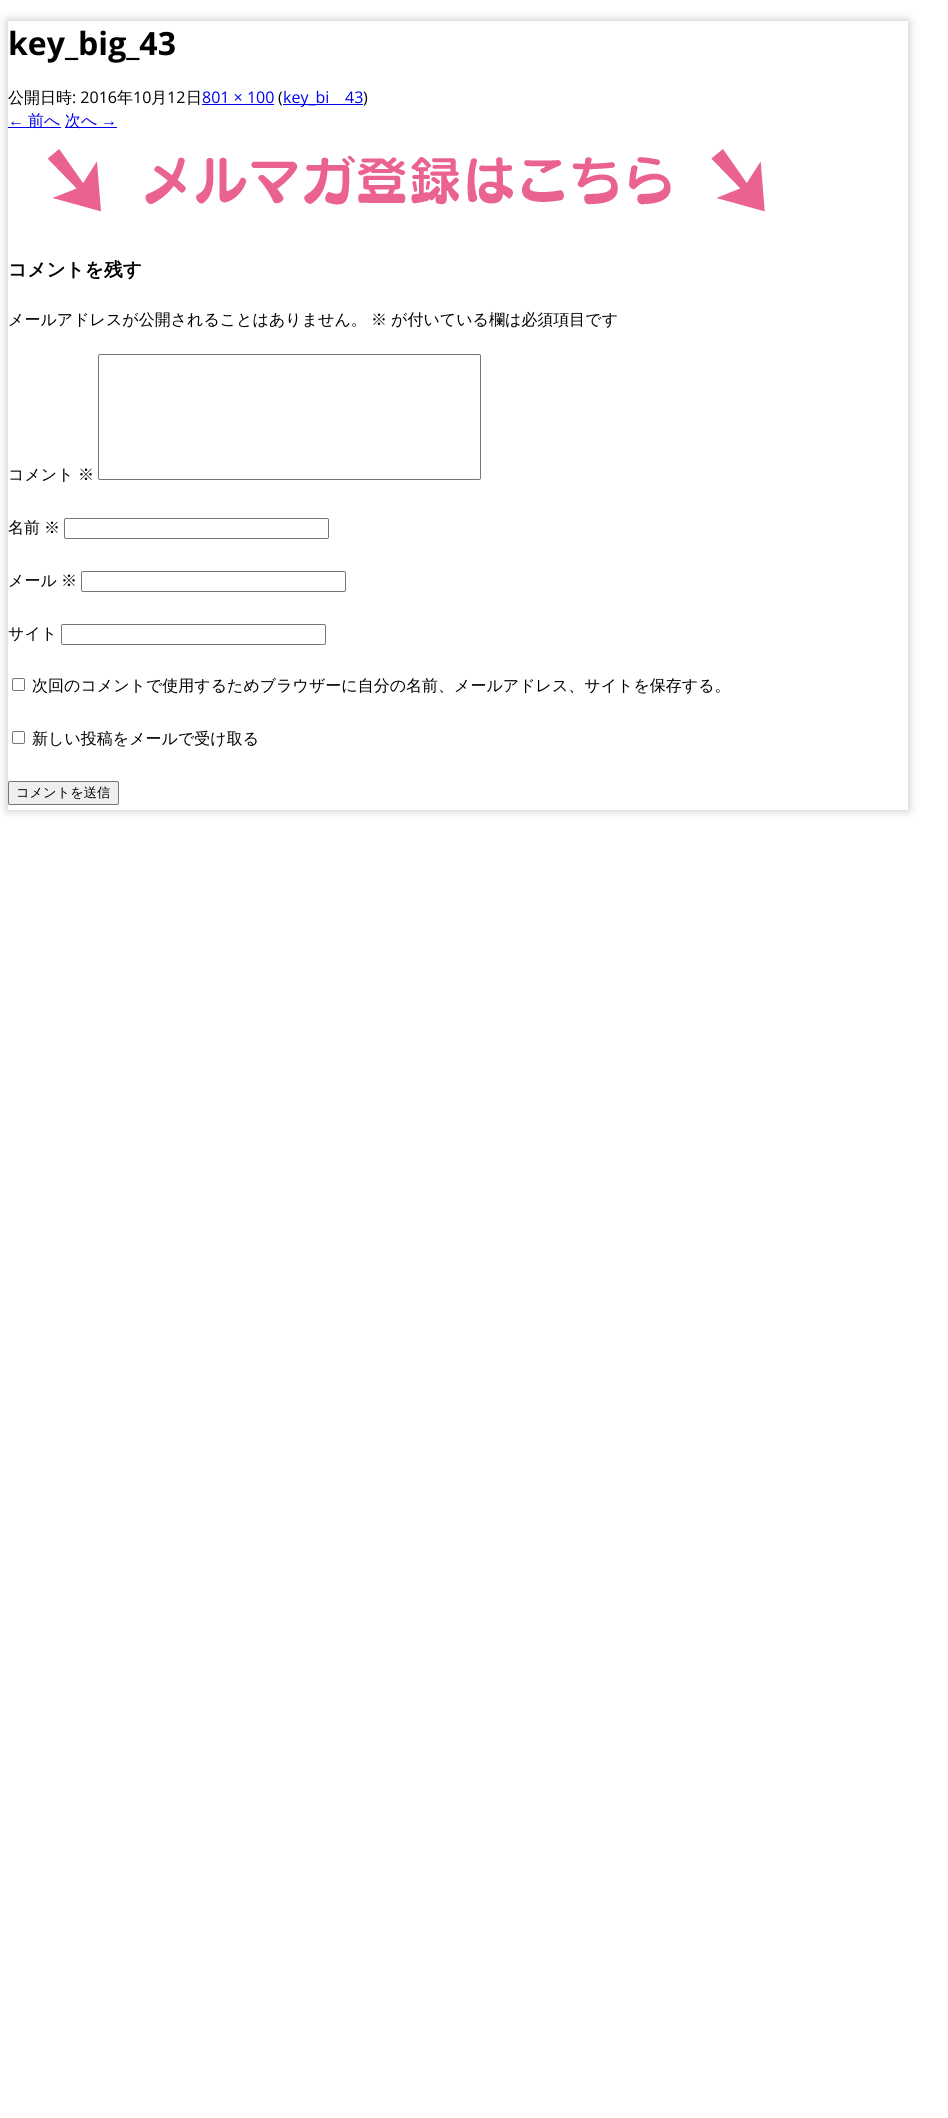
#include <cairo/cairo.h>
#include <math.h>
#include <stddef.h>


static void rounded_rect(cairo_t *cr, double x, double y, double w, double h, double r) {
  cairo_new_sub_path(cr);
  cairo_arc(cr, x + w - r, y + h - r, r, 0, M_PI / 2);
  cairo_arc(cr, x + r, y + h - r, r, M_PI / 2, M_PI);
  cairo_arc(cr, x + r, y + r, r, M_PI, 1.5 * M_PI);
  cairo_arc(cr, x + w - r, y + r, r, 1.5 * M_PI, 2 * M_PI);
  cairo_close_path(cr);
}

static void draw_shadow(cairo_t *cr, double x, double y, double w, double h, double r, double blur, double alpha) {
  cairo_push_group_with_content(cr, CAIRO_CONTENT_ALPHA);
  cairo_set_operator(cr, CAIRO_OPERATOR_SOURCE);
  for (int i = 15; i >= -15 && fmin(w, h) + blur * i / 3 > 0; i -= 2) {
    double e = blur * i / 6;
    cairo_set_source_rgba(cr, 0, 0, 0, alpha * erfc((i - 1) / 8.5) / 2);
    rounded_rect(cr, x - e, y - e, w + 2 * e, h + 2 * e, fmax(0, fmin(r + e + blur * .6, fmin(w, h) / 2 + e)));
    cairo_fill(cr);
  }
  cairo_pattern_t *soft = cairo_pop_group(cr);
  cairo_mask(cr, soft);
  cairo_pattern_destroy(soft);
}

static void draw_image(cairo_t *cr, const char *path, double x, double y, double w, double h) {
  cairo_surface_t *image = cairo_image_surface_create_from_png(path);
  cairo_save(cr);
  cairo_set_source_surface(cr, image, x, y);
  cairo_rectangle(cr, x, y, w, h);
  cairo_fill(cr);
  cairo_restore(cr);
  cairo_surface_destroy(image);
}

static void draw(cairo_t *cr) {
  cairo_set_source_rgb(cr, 1, 1, 1);
  cairo_paint(cr);
  cairo_save(cr);
  cairo_set_fill_rule(cr, CAIRO_FILL_RULE_EVEN_ODD);
  cairo_new_path(cr);
  cairo_move_to(cr, 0, 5);
  cairo_line_to(cr, 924, 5);
  cairo_line_to(cr, 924, 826);
  cairo_line_to(cr, 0, 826);
  cairo_close_path(cr);
  cairo_move_to(cr, 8, 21);
  cairo_line_to(cr, 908, 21);
  cairo_line_to(cr, 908, 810);
  cairo_line_to(cr, 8, 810);
  cairo_close_path(cr);
  cairo_clip(cr);
  cairo_set_source_rgb(cr, 0, 0, 0);
  draw_shadow(cr, 8, 21, 900, 789, 0, 5, 0.25);
  cairo_restore(cr);
  cairo_set_source_rgb(cr, 0, 0, 238 / 255.0);
  cairo_rectangle(cr, 202, 104, 72, 1);
  cairo_fill(cr);
  cairo_rectangle(cr, 283, 104, 80, 1);
  cairo_fill(cr);
  cairo_rectangle(cr, 8, 127, 53, 1);
  cairo_fill(cr);
  cairo_rectangle(cr, 65, 127, 52, 1);
  cairo_fill(cr);
  draw_image(cr, "images/1.png", 47, 149, 718, 63);
  rounded_rect(cr, 98.5, 354.5, 382, 125, 1.5);
  cairo_set_source_rgb(cr, 118 / 255.0, 118 / 255.0, 118 / 255.0);
  cairo_set_line_width(cr, 1);
  cairo_stroke(cr);
  rounded_rect(cr, 64.5, 518.5, 264, 20, 1.5);
  cairo_stroke(cr);
  rounded_rect(cr, 81.5, 571.5, 264, 20, 1.5);
  cairo_stroke(cr);
  rounded_rect(cr, 61.5, 624.5, 264, 20, 1.5);
  cairo_stroke(cr);
  rounded_rect(cr, 12.5, 678.5, 12, 12, 1.5);
  cairo_stroke(cr);
  rounded_rect(cr, 12.5, 731.5, 12, 12, 1.5);
  cairo_stroke(cr);
  cairo_set_source_rgb(cr, 239 / 255.0, 239 / 255.0, 239 / 255.0);
  rounded_rect(cr, 8.5, 781.5, 110, 23, 1.5);
  cairo_fill_preserve(cr);
  cairo_set_source_rgb(cr, 118 / 255.0, 118 / 255.0, 118 / 255.0);
  cairo_stroke(cr);
  cairo_select_font_face(cr, "Open Sans", CAIRO_FONT_SLANT_NORMAL, CAIRO_FONT_WEIGHT_BOLD);
  cairo_set_font_size(cr, 32);
  cairo_set_source_rgb(cr, 0, 0, 0);
  cairo_move_to(cr, 8, 55);
  cairo_show_text(cr, "key_big_43");
  cairo_select_font_face(cr, "WenQuanYi Zen Hei Medium", CAIRO_FONT_SLANT_NORMAL, CAIRO_FONT_WEIGHT_NORMAL);
  cairo_set_font_size(cr, 16);
  cairo_move_to(cr, 8, 103);
  cairo_show_text(cr, "公開日時");
  cairo_select_font_face(cr, "Open Sans", CAIRO_FONT_SLANT_NORMAL, CAIRO_FONT_WEIGHT_NORMAL);
  cairo_move_to(cr, 72, 103);
  cairo_show_text(cr, ": 2016");
  cairo_select_font_face(cr, "WenQuanYi Zen Hei Medium", CAIRO_FONT_SLANT_NORMAL, CAIRO_FONT_WEIGHT_NORMAL);
  cairo_move_to(cr, 117, 103);
  cairo_show_text(cr, "年");
  cairo_select_font_face(cr, "Open Sans", CAIRO_FONT_SLANT_NORMAL, CAIRO_FONT_WEIGHT_NORMAL);
  cairo_move_to(cr, 133, 103);
  cairo_show_text(cr, "10");
  cairo_select_font_face(cr, "WenQuanYi Zen Hei Medium", CAIRO_FONT_SLANT_NORMAL, CAIRO_FONT_WEIGHT_NORMAL);
  cairo_move_to(cr, 151, 103);
  cairo_show_text(cr, "月");
  cairo_select_font_face(cr, "Open Sans", CAIRO_FONT_SLANT_NORMAL, CAIRO_FONT_WEIGHT_NORMAL);
  cairo_move_to(cr, 167, 103);
  cairo_show_text(cr, "12");
  cairo_select_font_face(cr, "WenQuanYi Zen Hei Medium", CAIRO_FONT_SLANT_NORMAL, CAIRO_FONT_WEIGHT_NORMAL);
  cairo_move_to(cr, 186, 103);
  cairo_show_text(cr, "日");
  cairo_select_font_face(cr, "Open Sans", CAIRO_FONT_SLANT_NORMAL, CAIRO_FONT_WEIGHT_NORMAL);
  cairo_set_source_rgb(cr, 0, 0, 238 / 255.0);
  cairo_move_to(cr, 202, 103);
  cairo_show_text(cr, "801 × 100");
  cairo_set_source_rgb(cr, 0, 0, 0);
  cairo_move_to(cr, 278, 103);
  cairo_show_text(cr, "(");
  cairo_set_source_rgb(cr, 0, 0, 238 / 255.0);
  cairo_move_to(cr, 283, 103);
  cairo_show_text(cr, "key_bi");
  cairo_move_to(cr, 345, 103);
  cairo_show_text(cr, "43");
  cairo_set_source_rgb(cr, 0, 0, 0);
  cairo_move_to(cr, 363, 103);
  cairo_show_text(cr, ")");
  cairo_select_font_face(cr, "Liberation Sans", CAIRO_FONT_SLANT_NORMAL, CAIRO_FONT_WEIGHT_NORMAL);
  cairo_set_source_rgb(cr, 0, 0, 238 / 255.0);
  cairo_move_to(cr, 8, 126);
  cairo_show_text(cr, "←");
  cairo_select_font_face(cr, "WenQuanYi Zen Hei Medium", CAIRO_FONT_SLANT_NORMAL, CAIRO_FONT_WEIGHT_NORMAL);
  cairo_move_to(cr, 28, 126);
  cairo_show_text(cr, "前へ");
  cairo_move_to(cr, 65, 126);
  cairo_show_text(cr, "次へ");
  cairo_select_font_face(cr, "Liberation Sans", CAIRO_FONT_SLANT_NORMAL, CAIRO_FONT_WEIGHT_NORMAL);
  cairo_move_to(cr, 101, 126);
  cairo_show_text(cr, "→");
  cairo_select_font_face(cr, "WenQuanYi Zen Hei", CAIRO_FONT_SLANT_NORMAL, CAIRO_FONT_WEIGHT_BOLD);
  cairo_set_font_size(cr, 18.75);
  cairo_set_source_rgb(cr, 0, 0, 0);
  cairo_move_to(cr, 8, 276);
  cairo_show_text(cr, "コメントを残す");
  cairo_select_font_face(cr, "WenQuanYi Zen Hei Medium", CAIRO_FONT_SLANT_NORMAL, CAIRO_FONT_WEIGHT_NORMAL);
  cairo_set_font_size(cr, 16);
  cairo_move_to(cr, 8, 325);
  cairo_show_text(cr, "メールアドレスが公開されることはありません。");
  cairo_move_to(cr, 371, 325);
  cairo_show_text(cr, "※");
  cairo_move_to(cr, 391, 325);
  cairo_show_text(cr, "が付いている欄は必須項目です");
  cairo_move_to(cr, 8, 480);
  cairo_show_text(cr, "コメント");
  cairo_move_to(cr, 78, 480);
  cairo_show_text(cr, "※");
  cairo_move_to(cr, 8, 533);
  cairo_show_text(cr, "名前");
  cairo_move_to(cr, 44, 533);
  cairo_show_text(cr, "※");
  cairo_move_to(cr, 8, 586);
  cairo_show_text(cr, "メール");
  cairo_move_to(cr, 61, 586);
  cairo_show_text(cr, "※");
  cairo_move_to(cr, 8, 639);
  cairo_show_text(cr, "サイト");
  cairo_move_to(cr, 32, 691);
  cairo_show_text(cr, "次回のコメントで使用するためブラウザーに自分の名前、メールアドレス、サイトを保存する。");
  cairo_move_to(cr, 32, 744);
  cairo_show_text(cr, "新しい投稿をメールで受け取る");
  cairo_set_font_size(cr, 13.25);
  cairo_move_to(cr, 16, 797);
  cairo_show_text(cr, "コメントを送信");
}

int main(void) {
  cairo_surface_t *surface = cairo_image_surface_create(CAIRO_FORMAT_RGB24, 948, 2118);
  cairo_t *cr = cairo_create(surface);
  cairo_font_options_t *options = cairo_font_options_create();
  cairo_font_options_set_hint_metrics(options, CAIRO_HINT_METRICS_OFF);
  cairo_font_options_set_hint_style(options, CAIRO_HINT_STYLE_NONE);
  cairo_set_font_options(cr, options);
  cairo_set_miter_limit(cr, 4);
  draw(cr);
  cairo_surface_write_to_png(surface, "out.png");
  cairo_font_options_destroy(options);
  cairo_destroy(cr);
  cairo_surface_destroy(surface);
  return 0;
}
